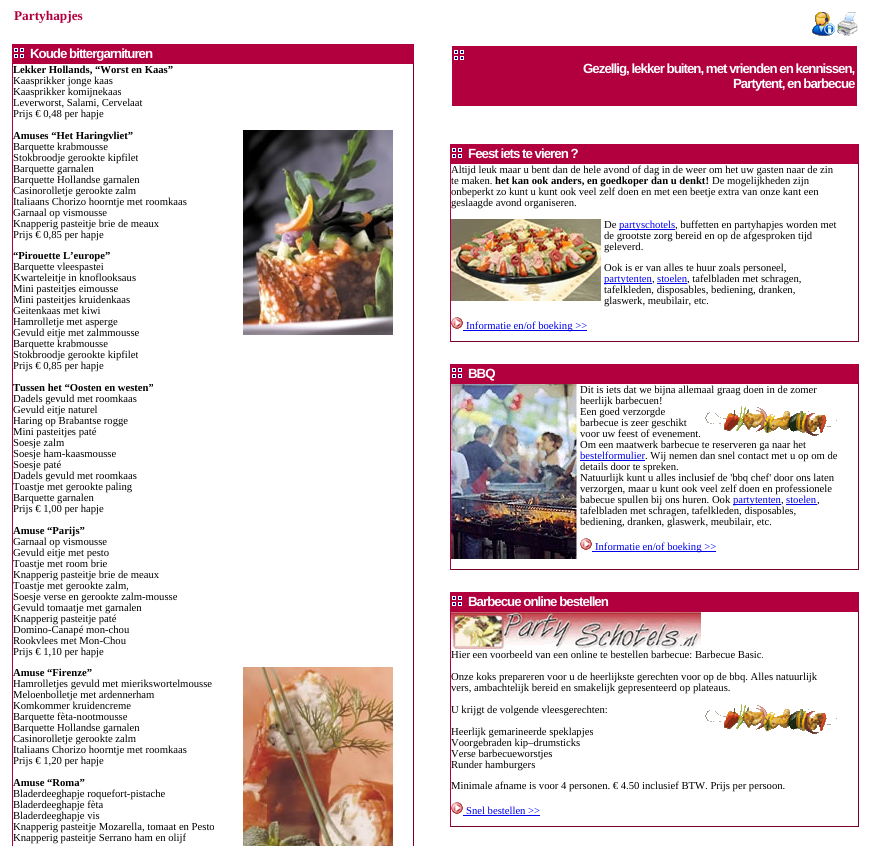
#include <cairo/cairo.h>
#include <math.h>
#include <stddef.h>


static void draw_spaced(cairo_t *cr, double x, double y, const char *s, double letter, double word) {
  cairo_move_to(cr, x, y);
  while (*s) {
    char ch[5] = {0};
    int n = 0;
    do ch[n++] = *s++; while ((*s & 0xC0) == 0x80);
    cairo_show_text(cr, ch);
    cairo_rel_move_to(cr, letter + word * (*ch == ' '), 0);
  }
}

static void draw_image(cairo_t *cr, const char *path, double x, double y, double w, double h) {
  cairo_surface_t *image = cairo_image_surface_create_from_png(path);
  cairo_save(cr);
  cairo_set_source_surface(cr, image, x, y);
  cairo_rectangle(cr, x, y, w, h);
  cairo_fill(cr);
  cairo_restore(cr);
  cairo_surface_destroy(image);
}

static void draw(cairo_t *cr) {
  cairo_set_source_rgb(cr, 1, 1, 1);
  cairo_paint(cr);
  draw_image(cr, "images/1.png", 812, 12, 23, 24);
  draw_image(cr, "images/2.png", 837, 12, 21, 24);
  cairo_set_source_rgb(cr, 178 / 255.0, 0, 63 / 255.0);
  cairo_rectangle(cr, 12, 44, 402, 20);
  cairo_fill(cr);
  draw_image(cr, "images/3.png", 14, 48, 10, 10);
  cairo_set_source_rgb(cr, 119 / 255.0, 0, 42 / 255.0);
  cairo_rectangle(cr, 413, 63, 1, 783);
  cairo_fill(cr);
  cairo_set_source_rgb(cr, 178 / 255.0, 0, 63 / 255.0);
  cairo_rectangle(cr, 12, 63, 1, 783);
  cairo_fill(cr);
  draw_image(cr, "images/4.png", 243, 130, 150, 205);
  draw_image(cr, "images/5.png", 243, 667, 150, 179);
  cairo_rectangle(cr, 452, 46, 405, 60);
  cairo_fill(cr);
  draw_image(cr, "images/3.png", 454, 50, 10, 10);
  cairo_rectangle(cr, 450, 144, 409, 20);
  cairo_fill(cr);
  draw_image(cr, "images/3.png", 452, 148, 10, 10);
  cairo_set_source_rgb(cr, 119 / 255.0, 0, 42 / 255.0);
  cairo_rectangle(cr, 858, 163, 1, 179);
  cairo_fill(cr);
  cairo_rectangle(cr, 450, 341, 409, 1);
  cairo_fill(cr);
  cairo_set_source_rgb(cr, 178 / 255.0, 0, 63 / 255.0);
  cairo_rectangle(cr, 450, 163, 1, 179);
  cairo_fill(cr);
  draw_image(cr, "images/6.png", 451, 219, 150, 82);
  cairo_set_source_rgb(cr, 0, 0, 238 / 255.0);
  cairo_rectangle(cr, 619, 229, 56, 1);
  cairo_fill(cr);
  cairo_rectangle(cr, 604, 283, 48, 1);
  cairo_fill(cr);
  cairo_rectangle(cr, 657, 283, 30, 1);
  cairo_fill(cr);
  draw_image(cr, "images/7.png", 451, 317, 12, 12);
  cairo_rectangle(cr, 463, 330, 124, 1);
  cairo_fill(cr);
  cairo_set_source_rgb(cr, 178 / 255.0, 0, 63 / 255.0);
  cairo_rectangle(cr, 450, 364, 409, 20);
  cairo_fill(cr);
  draw_image(cr, "images/3.png", 452, 368, 10, 10);
  cairo_set_source_rgb(cr, 119 / 255.0, 0, 42 / 255.0);
  cairo_rectangle(cr, 858, 383, 1, 187);
  cairo_fill(cr);
  cairo_rectangle(cr, 450, 569, 409, 1);
  cairo_fill(cr);
  cairo_set_source_rgb(cr, 178 / 255.0, 0, 63 / 255.0);
  cairo_rectangle(cr, 450, 383, 1, 187);
  cairo_fill(cr);
  draw_image(cr, "images/8.png", 451, 384, 126, 175);
  draw_image(cr, "images/9.png", 705, 406, 132, 30);
  cairo_set_source_rgb(cr, 0, 0, 238 / 255.0);
  cairo_rectangle(cr, 580, 460, 65, 1);
  cairo_fill(cr);
  cairo_rectangle(cr, 733, 504, 48, 1);
  cairo_fill(cr);
  cairo_rectangle(cr, 786, 504, 31, 1);
  cairo_fill(cr);
  draw_image(cr, "images/7.png", 580, 538, 12, 12);
  cairo_rectangle(cr, 592, 551, 124, 1);
  cairo_fill(cr);
  cairo_set_source_rgb(cr, 178 / 255.0, 0, 63 / 255.0);
  cairo_rectangle(cr, 450, 592, 409, 20);
  cairo_fill(cr);
  draw_image(cr, "images/3.png", 452, 596, 10, 10);
  cairo_set_source_rgb(cr, 119 / 255.0, 0, 42 / 255.0);
  cairo_rectangle(cr, 858, 611, 1, 216);
  cairo_fill(cr);
  cairo_rectangle(cr, 450, 826, 409, 1);
  cairo_fill(cr);
  cairo_set_source_rgb(cr, 178 / 255.0, 0, 63 / 255.0);
  cairo_rectangle(cr, 450, 611, 1, 216);
  cairo_fill(cr);
  draw_image(cr, "images/10.png", 451, 612, 250, 37);
  draw_image(cr, "images/9.png", 705, 704, 132, 30);
  draw_image(cr, "images/7.png", 451, 802, 12, 12);
  cairo_set_source_rgb(cr, 0, 0, 238 / 255.0);
  cairo_rectangle(cr, 463, 815, 77, 1);
  cairo_fill(cr);
  cairo_select_font_face(cr, "Liberation Serif", CAIRO_FONT_SLANT_NORMAL, CAIRO_FONT_WEIGHT_BOLD);
  cairo_set_font_size(cr, 13.3);
  cairo_set_source_rgb(cr, 178 / 255.0, 0, 63 / 255.0);
  cairo_move_to(cr, 14, 20);
  cairo_show_text(cr, "Partyhapjes");
  cairo_select_font_face(cr, "Liberation Sans", CAIRO_FONT_SLANT_NORMAL, CAIRO_FONT_WEIGHT_BOLD);
  cairo_set_source_rgb(cr, 1, 1, 1);
  draw_spaced(cr, 30, 58, "Koude bittergarnituren", -1, 0);
  cairo_select_font_face(cr, "Liberation Serif", CAIRO_FONT_SLANT_NORMAL, CAIRO_FONT_WEIGHT_BOLD);
  cairo_set_font_size(cr, 10.65);
  cairo_set_source_rgb(cr, 0, 0, 0);
  cairo_move_to(cr, 13, 73);
  cairo_show_text(cr, "Lekker Hollands, “Worst en Kaas”");
  cairo_select_font_face(cr, "Liberation Serif", CAIRO_FONT_SLANT_NORMAL, CAIRO_FONT_WEIGHT_NORMAL);
  cairo_move_to(cr, 13, 84);
  cairo_show_text(cr, "Kaasprikker jonge kaas");
  cairo_move_to(cr, 13, 95);
  cairo_show_text(cr, "Kaasprikker komijnekaas");
  cairo_move_to(cr, 13, 106);
  cairo_show_text(cr, "Leverworst, Salami, Cervelaat");
  cairo_move_to(cr, 13, 117);
  cairo_show_text(cr, "Prijs € 0,48 per hapje");
  cairo_select_font_face(cr, "Liberation Serif", CAIRO_FONT_SLANT_NORMAL, CAIRO_FONT_WEIGHT_BOLD);
  cairo_move_to(cr, 13, 139);
  cairo_show_text(cr, "Amuses “Het Haringvliet”");
  cairo_select_font_face(cr, "Liberation Serif", CAIRO_FONT_SLANT_NORMAL, CAIRO_FONT_WEIGHT_NORMAL);
  cairo_move_to(cr, 13, 150);
  cairo_show_text(cr, "Barquette krabmousse");
  cairo_move_to(cr, 13, 161);
  cairo_show_text(cr, "Stokbroodje gerookte kipfilet");
  cairo_move_to(cr, 13, 172);
  cairo_show_text(cr, "Barquette garnalen");
  cairo_move_to(cr, 13, 183);
  cairo_show_text(cr, "Barquette Hollandse garnalen");
  cairo_move_to(cr, 13, 194);
  cairo_show_text(cr, "Casinorolletje gerookte zalm");
  cairo_move_to(cr, 13, 205);
  cairo_show_text(cr, "Italiaans Chorizo hoorntje met roomkaas");
  cairo_move_to(cr, 13, 216);
  cairo_show_text(cr, "Garnaal op vismousse");
  cairo_move_to(cr, 13, 227);
  cairo_show_text(cr, "Knapperig pasteitje brie de meaux");
  cairo_move_to(cr, 13, 238);
  cairo_show_text(cr, "Prijs € 0,85 per hapje");
  cairo_select_font_face(cr, "Liberation Serif", CAIRO_FONT_SLANT_NORMAL, CAIRO_FONT_WEIGHT_BOLD);
  cairo_move_to(cr, 13, 259);
  cairo_show_text(cr, "“Pirouette L’europe”");
  cairo_select_font_face(cr, "Liberation Serif", CAIRO_FONT_SLANT_NORMAL, CAIRO_FONT_WEIGHT_NORMAL);
  cairo_move_to(cr, 13, 270);
  cairo_show_text(cr, "Barquette vleespastei");
  cairo_move_to(cr, 13, 281);
  cairo_show_text(cr, "Kwarteleitje in knoflooksaus");
  cairo_move_to(cr, 13, 292);
  cairo_show_text(cr, "Mini pasteitjes eimousse");
  cairo_move_to(cr, 13, 303);
  cairo_show_text(cr, "Mini pasteitjes kruidenkaas");
  cairo_move_to(cr, 13, 314);
  cairo_show_text(cr, "Geitenkaas met kiwi");
  cairo_move_to(cr, 13, 325);
  cairo_show_text(cr, "Hamrolletje met asperge");
  cairo_move_to(cr, 13, 336);
  cairo_show_text(cr, "Gevuld eitje met zalmmousse");
  cairo_move_to(cr, 13, 347);
  cairo_show_text(cr, "Barquette krabmousse");
  cairo_move_to(cr, 13, 358);
  cairo_show_text(cr, "Stokbroodje gerookte kipfilet");
  cairo_move_to(cr, 13, 369);
  cairo_show_text(cr, "Prijs € 0,85 per hapje");
  cairo_select_font_face(cr, "Liberation Serif", CAIRO_FONT_SLANT_NORMAL, CAIRO_FONT_WEIGHT_BOLD);
  cairo_move_to(cr, 13, 391);
  cairo_show_text(cr, "Tussen het “Oosten en westen”");
  cairo_select_font_face(cr, "Liberation Serif", CAIRO_FONT_SLANT_NORMAL, CAIRO_FONT_WEIGHT_NORMAL);
  cairo_move_to(cr, 13, 402);
  cairo_show_text(cr, "Dadels gevuld met roomkaas");
  cairo_move_to(cr, 13, 413);
  cairo_show_text(cr, "Gevuld eitje naturel");
  cairo_move_to(cr, 13, 424);
  cairo_show_text(cr, "Haring op Brabantse rogge");
  cairo_move_to(cr, 13, 435);
  cairo_show_text(cr, "Mini pasteitjes paté");
  cairo_move_to(cr, 13, 446);
  cairo_show_text(cr, "Soesje zalm");
  cairo_move_to(cr, 13, 457);
  cairo_show_text(cr, "Soesje ham-kaasmousse");
  cairo_move_to(cr, 13, 468);
  cairo_show_text(cr, "Soesje paté");
  cairo_move_to(cr, 13, 479);
  cairo_show_text(cr, "Dadels gevuld met roomkaas");
  cairo_move_to(cr, 13, 490);
  cairo_show_text(cr, "Toastje met gerookte paling");
  cairo_move_to(cr, 13, 501);
  cairo_show_text(cr, "Barquette garnalen");
  cairo_move_to(cr, 13, 512);
  cairo_show_text(cr, "Prijs € 1,00 per hapje");
  cairo_select_font_face(cr, "Liberation Serif", CAIRO_FONT_SLANT_NORMAL, CAIRO_FONT_WEIGHT_BOLD);
  cairo_move_to(cr, 13, 534);
  cairo_show_text(cr, "Amuse “Parijs”");
  cairo_select_font_face(cr, "Liberation Serif", CAIRO_FONT_SLANT_NORMAL, CAIRO_FONT_WEIGHT_NORMAL);
  cairo_move_to(cr, 13, 545);
  cairo_show_text(cr, "Garnaal op vismousse");
  cairo_move_to(cr, 13, 556);
  cairo_show_text(cr, "Gevuld eitje met pesto");
  cairo_move_to(cr, 13, 567);
  cairo_show_text(cr, "Toastje met room brie");
  cairo_move_to(cr, 13, 578);
  cairo_show_text(cr, "Knapperig pasteitje brie de meaux");
  cairo_move_to(cr, 13, 589);
  cairo_show_text(cr, "Toastje met gerookte zalm,");
  cairo_move_to(cr, 13, 600);
  cairo_show_text(cr, "Soesje verse en gerookte zalm-mousse");
  cairo_move_to(cr, 13, 611);
  cairo_show_text(cr, "Gevuld tomaatje met garnalen");
  cairo_move_to(cr, 13, 622);
  cairo_show_text(cr, "Knapperig pasteitje paté");
  cairo_move_to(cr, 13, 633);
  cairo_show_text(cr, "Domino-Canapé mon-chou");
  cairo_move_to(cr, 13, 644);
  cairo_show_text(cr, "Rookvlees met Mon-Chou");
  cairo_move_to(cr, 13, 655);
  cairo_show_text(cr, "Prijs € 1,10 per hapje");
  cairo_select_font_face(cr, "Liberation Serif", CAIRO_FONT_SLANT_NORMAL, CAIRO_FONT_WEIGHT_BOLD);
  cairo_move_to(cr, 13, 676);
  cairo_show_text(cr, "Amuse “Firenze”");
  cairo_select_font_face(cr, "Liberation Serif", CAIRO_FONT_SLANT_NORMAL, CAIRO_FONT_WEIGHT_NORMAL);
  cairo_move_to(cr, 13, 687);
  cairo_show_text(cr, "Hamrolletjes gevuld met mierikswortelmousse");
  cairo_move_to(cr, 13, 698);
  cairo_show_text(cr, "Meloenbolletje met ardennerham");
  cairo_move_to(cr, 13, 709);
  cairo_show_text(cr, "Komkommer kruidencreme");
  cairo_move_to(cr, 13, 720);
  cairo_show_text(cr, "Barquette fèta-nootmousse");
  cairo_move_to(cr, 13, 731);
  cairo_show_text(cr, "Barquette Hollandse garnalen");
  cairo_move_to(cr, 13, 742);
  cairo_show_text(cr, "Casinorolletje gerookte zalm");
  cairo_move_to(cr, 13, 753);
  cairo_show_text(cr, "Italiaans Chorizo hoorntje met roomkaas");
  cairo_move_to(cr, 13, 764);
  cairo_show_text(cr, "Prijs € 1,20 per hapje");
  cairo_select_font_face(cr, "Liberation Serif", CAIRO_FONT_SLANT_NORMAL, CAIRO_FONT_WEIGHT_BOLD);
  cairo_move_to(cr, 13, 786);
  cairo_show_text(cr, "Amuse “Roma”");
  cairo_select_font_face(cr, "Liberation Serif", CAIRO_FONT_SLANT_NORMAL, CAIRO_FONT_WEIGHT_NORMAL);
  cairo_move_to(cr, 13, 797);
  cairo_show_text(cr, "Bladerdeeghapje roquefort-pistache");
  cairo_move_to(cr, 13, 808);
  cairo_show_text(cr, "Bladerdeeghapje fèta");
  cairo_move_to(cr, 13, 819);
  cairo_show_text(cr, "Bladerdeeghapje vis");
  cairo_move_to(cr, 13, 830);
  cairo_show_text(cr, "Knapperig pasteitje Mozarella, tomaat en Pesto");
  cairo_move_to(cr, 13, 841);
  cairo_show_text(cr, "Knapperig pasteitje Serrano ham en olijf");
  cairo_select_font_face(cr, "Liberation Sans", CAIRO_FONT_SLANT_NORMAL, CAIRO_FONT_WEIGHT_BOLD);
  cairo_set_font_size(cr, 13.3);
  cairo_set_source_rgb(cr, 1, 1, 1);
  draw_spaced(cr, 583, 73, "Gezellig, lekker buiten, met vrienden en kennissen,", -1, 0);
  draw_spaced(cr, 733, 88, "Partytent, en barbecue", -1, 0);
  draw_spaced(cr, 468, 158, "Feest iets te vieren ?", -1, 0);
  cairo_select_font_face(cr, "Liberation Serif", CAIRO_FONT_SLANT_NORMAL, CAIRO_FONT_WEIGHT_NORMAL);
  cairo_set_font_size(cr, 10.65);
  cairo_set_source_rgb(cr, 0, 0, 0);
  cairo_move_to(cr, 451, 173);
  cairo_show_text(cr, "Altijd leuk maar u bent dan de hele avond of dag in de weer om het uw gasten naar de zin");
  cairo_move_to(cr, 451, 184);
  cairo_show_text(cr, "te maken.");
  cairo_select_font_face(cr, "Liberation Serif", CAIRO_FONT_SLANT_NORMAL, CAIRO_FONT_WEIGHT_BOLD);
  cairo_move_to(cr, 495, 184);
  cairo_show_text(cr, "het kan ook anders, en goedkoper dan u denkt!");
  cairo_select_font_face(cr, "Liberation Serif", CAIRO_FONT_SLANT_NORMAL, CAIRO_FONT_WEIGHT_NORMAL);
  cairo_move_to(cr, 712, 184);
  cairo_show_text(cr, "De mogelijkheden zijn");
  cairo_move_to(cr, 451, 195);
  cairo_show_text(cr, "onbeperkt zo kunt u kunt ook veel zelf doen en met een beetje extra van onze kant een");
  cairo_move_to(cr, 451, 206);
  cairo_show_text(cr, "geslaagde avond organiseren.");
  cairo_move_to(cr, 604, 228);
  cairo_show_text(cr, "De");
  cairo_set_source_rgb(cr, 0, 0, 238 / 255.0);
  cairo_move_to(cr, 619, 228);
  cairo_show_text(cr, "partyschotels");
  cairo_set_source_rgb(cr, 0, 0, 0);
  cairo_move_to(cr, 675, 228);
  cairo_show_text(cr, ", buffetten en partyhapjes worden met");
  cairo_move_to(cr, 604, 239);
  cairo_show_text(cr, "de grootste zorg bereid en op de afgesproken tijd");
  cairo_move_to(cr, 604, 250);
  cairo_show_text(cr, "geleverd.");
  cairo_move_to(cr, 604, 271);
  cairo_show_text(cr, "Ook is er van alles te huur zoals personeel,");
  cairo_set_source_rgb(cr, 0, 0, 238 / 255.0);
  cairo_move_to(cr, 604, 282);
  cairo_show_text(cr, "partytenten");
  cairo_set_source_rgb(cr, 0, 0, 0);
  cairo_move_to(cr, 652, 282);
  cairo_show_text(cr, ",");
  cairo_set_source_rgb(cr, 0, 0, 238 / 255.0);
  cairo_move_to(cr, 657, 282);
  cairo_show_text(cr, "stoelen");
  cairo_set_source_rgb(cr, 0, 0, 0);
  cairo_move_to(cr, 687, 282);
  cairo_show_text(cr, ", tafelbladen met schragen,");
  cairo_move_to(cr, 604, 293);
  cairo_show_text(cr, "tafelkleden, disposables, bediening, dranken,");
  cairo_move_to(cr, 604, 304);
  cairo_show_text(cr, "glaswerk, meubilair, etc.");
  cairo_set_source_rgb(cr, 0, 0, 238 / 255.0);
  cairo_move_to(cr, 466, 329);
  cairo_show_text(cr, "Informatie en/of boeking >>");
  cairo_select_font_face(cr, "Liberation Sans", CAIRO_FONT_SLANT_NORMAL, CAIRO_FONT_WEIGHT_BOLD);
  cairo_set_font_size(cr, 13.3);
  cairo_set_source_rgb(cr, 1, 1, 1);
  draw_spaced(cr, 468, 378, "BBQ", -1, 0);
  cairo_select_font_face(cr, "Liberation Serif", CAIRO_FONT_SLANT_NORMAL, CAIRO_FONT_WEIGHT_NORMAL);
  cairo_set_font_size(cr, 10.65);
  cairo_set_source_rgb(cr, 0, 0, 0);
  cairo_move_to(cr, 580, 393);
  cairo_show_text(cr, "Dit is iets dat we bijna allemaal graag doen in de zomer");
  cairo_move_to(cr, 580, 404);
  cairo_show_text(cr, "heerlijk barbecuen!");
  cairo_move_to(cr, 580, 415);
  cairo_show_text(cr, "Een goed verzorgde");
  cairo_move_to(cr, 580, 426);
  cairo_show_text(cr, "barbecue is zeer geschikt");
  cairo_move_to(cr, 580, 437);
  cairo_show_text(cr, "voor uw feest of evenement.");
  cairo_move_to(cr, 580, 448);
  cairo_show_text(cr, "Om een maatwerk barbecue te reserveren ga naar het");
  cairo_set_source_rgb(cr, 0, 0, 238 / 255.0);
  cairo_move_to(cr, 580, 459);
  cairo_show_text(cr, "bestelformulier");
  cairo_set_source_rgb(cr, 0, 0, 0);
  cairo_move_to(cr, 645, 459);
  cairo_show_text(cr, ". Wij nemen dan snel contact met u op om de");
  cairo_move_to(cr, 580, 470);
  cairo_show_text(cr, "details door te spreken.");
  cairo_move_to(cr, 580, 481);
  cairo_show_text(cr, "Natuurlijk kunt u alles inclusief de 'bbq chef' door ons laten");
  cairo_move_to(cr, 580, 492);
  cairo_show_text(cr, "verzorgen, maar u kunt ook veel zelf doen en professionele");
  cairo_move_to(cr, 580, 503);
  cairo_show_text(cr, "babecue spullen bij ons huren. Ook");
  cairo_set_source_rgb(cr, 0, 0, 238 / 255.0);
  cairo_move_to(cr, 733, 503);
  cairo_show_text(cr, "partytenten");
  cairo_set_source_rgb(cr, 0, 0, 0);
  cairo_move_to(cr, 781, 503);
  cairo_show_text(cr, ",");
  cairo_set_source_rgb(cr, 0, 0, 238 / 255.0);
  cairo_move_to(cr, 786, 503);
  cairo_show_text(cr, "stoelen");
  cairo_set_source_rgb(cr, 0, 0, 0);
  cairo_move_to(cr, 817, 503);
  cairo_show_text(cr, ",");
  cairo_move_to(cr, 580, 514);
  cairo_show_text(cr, "tafelbladen met schragen, tafelkleden, disposables,");
  cairo_move_to(cr, 580, 525);
  cairo_show_text(cr, "bediening, dranken, glaswerk, meubilair, etc.");
  cairo_set_source_rgb(cr, 0, 0, 238 / 255.0);
  cairo_move_to(cr, 595, 550);
  cairo_show_text(cr, "Informatie en/of boeking >>");
  cairo_select_font_face(cr, "Liberation Sans", CAIRO_FONT_SLANT_NORMAL, CAIRO_FONT_WEIGHT_BOLD);
  cairo_set_font_size(cr, 13.3);
  cairo_set_source_rgb(cr, 1, 1, 1);
  draw_spaced(cr, 468, 606, "Barbecue online bestellen", -1, 0);
  cairo_select_font_face(cr, "Liberation Serif", CAIRO_FONT_SLANT_NORMAL, CAIRO_FONT_WEIGHT_NORMAL);
  cairo_set_font_size(cr, 10.65);
  cairo_set_source_rgb(cr, 0, 0, 0);
  cairo_move_to(cr, 451, 658);
  cairo_show_text(cr, "Hier een voorbeeld van een online te bestellen barbecue: Barbecue Basic.");
  cairo_move_to(cr, 451, 680);
  cairo_show_text(cr, "Onze koks prepareren voor u de heerlijkste gerechten voor op de bbq. Alles natuurlijk");
  cairo_move_to(cr, 451, 691);
  cairo_show_text(cr, "vers, ambachtelijk bereid en smakelijk gepresenteerd op plateaus.");
  cairo_move_to(cr, 451, 713);
  cairo_show_text(cr, "U krijgt de volgende vleesgerechten:");
  cairo_move_to(cr, 451, 735);
  cairo_show_text(cr, "Heerlijk gemarineerde speklapjes");
  cairo_move_to(cr, 451, 746);
  cairo_show_text(cr, "Voorgebraden kip–drumsticks");
  cairo_move_to(cr, 451, 757);
  cairo_show_text(cr, "Verse barbecueworstjes");
  cairo_move_to(cr, 451, 768);
  cairo_show_text(cr, "Runder hamburgers");
  cairo_move_to(cr, 451, 789);
  cairo_show_text(cr, "Minimale afname is voor 4 personen. € 4.50 inclusief BTW. Prijs per persoon.");
  cairo_set_source_rgb(cr, 0, 0, 238 / 255.0);
  cairo_move_to(cr, 466, 814);
  cairo_show_text(cr, "Snel bestellen >>");
}

int main(void) {
  cairo_surface_t *surface = cairo_image_surface_create(CAIRO_FORMAT_RGB24, 871, 846);
  cairo_t *cr = cairo_create(surface);
  cairo_font_options_t *options = cairo_font_options_create();
  cairo_font_options_set_hint_metrics(options, CAIRO_HINT_METRICS_OFF);
  cairo_font_options_set_hint_style(options, CAIRO_HINT_STYLE_NONE);
  cairo_set_font_options(cr, options);
  cairo_set_miter_limit(cr, 4);
  draw(cr);
  cairo_surface_write_to_png(surface, "out.png");
  cairo_font_options_destroy(options);
  cairo_destroy(cr);
  cairo_surface_destroy(surface);
  return 0;
}
